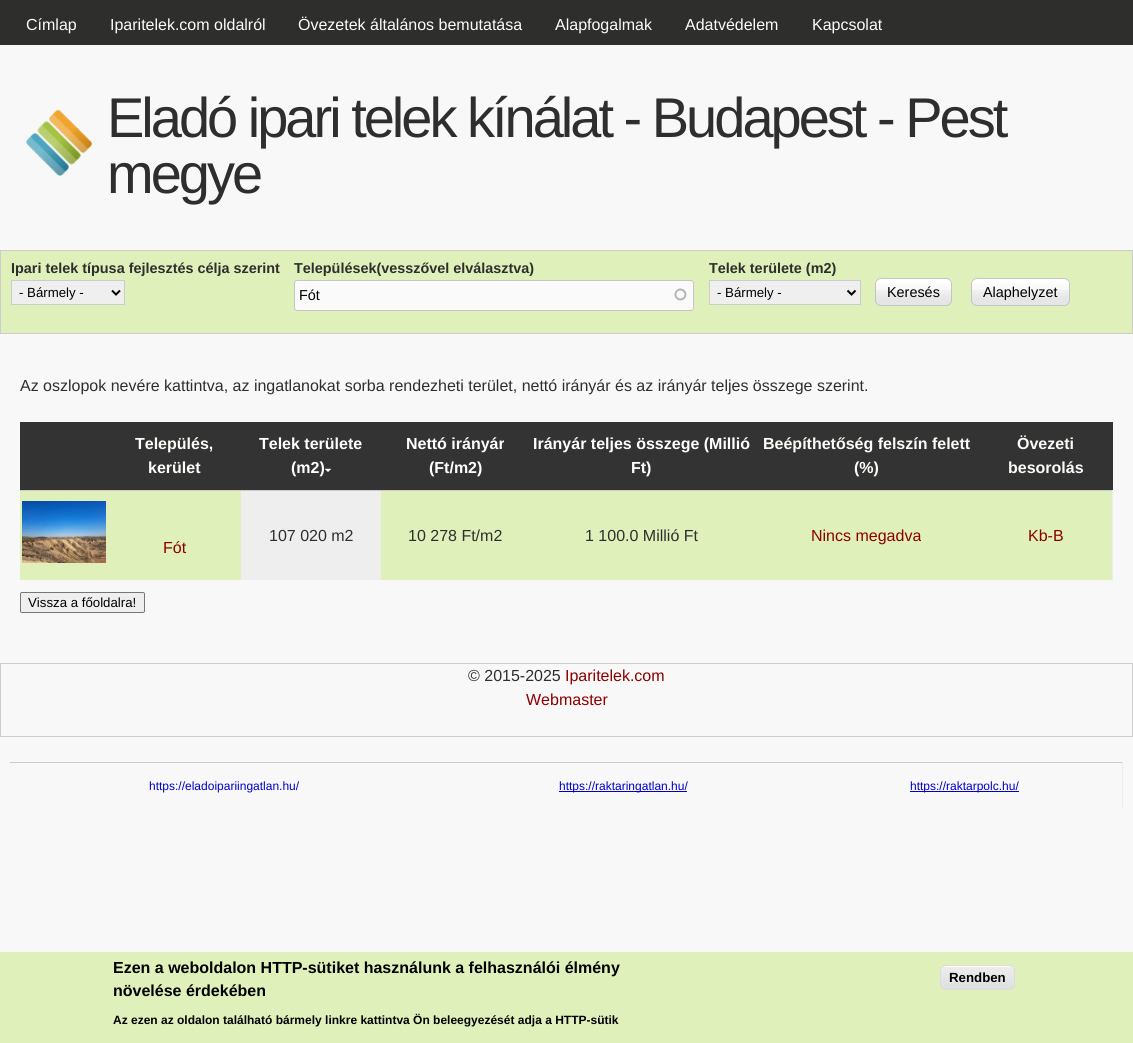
#include <cairo/cairo.h>
#include <math.h>
#include <stddef.h>


static void draw_spaced(cairo_t *cr, double x, double y, const char *s, double letter, double word) {
  cairo_move_to(cr, x, y);
  while (*s) {
    char ch[5] = {0};
    int n = 0;
    do ch[n++] = *s++; while ((*s & 0xC0) == 0x80);
    cairo_show_text(cr, ch);
    cairo_rel_move_to(cr, letter + word * (*ch == ' '), 0);
  }
}

static void rounded_rect(cairo_t *cr, double x, double y, double w, double h, double r) {
  cairo_new_sub_path(cr);
  cairo_arc(cr, x + w - r, y + h - r, r, 0, M_PI / 2);
  cairo_arc(cr, x + r, y + h - r, r, M_PI / 2, M_PI);
  cairo_arc(cr, x + r, y + r, r, M_PI, 1.5 * M_PI);
  cairo_arc(cr, x + w - r, y + r, r, 1.5 * M_PI, 2 * M_PI);
  cairo_close_path(cr);
}

static void draw_image(cairo_t *cr, const char *path, double x, double y, double w, double h) {
  cairo_surface_t *image = cairo_image_surface_create_from_png(path);
  cairo_save(cr);
  cairo_set_source_surface(cr, image, x, y);
  cairo_rectangle(cr, x, y, w, h);
  cairo_fill(cr);
  cairo_restore(cr);
  cairo_surface_destroy(image);
}

static void draw(cairo_t *cr) {
  cairo_pattern_t *gradient;
  cairo_set_source_rgb(cr, 248 / 255.0, 248 / 255.0, 248 / 255.0);
  cairo_paint(cr);
  cairo_set_source_rgb(cr, 46 / 255.0, 46 / 255.0, 45 / 255.0);
  cairo_rectangle(cr, 0, 0, 1133, 45);
  cairo_fill(cr);
  draw_image(cr, "images/1.png", 26, 109, 66, 68);
  cairo_set_source_rgb(cr, 224 / 255.0, 240 / 255.0, 186 / 255.0);
  cairo_rectangle(cr, 0.5, 250.5, 1132, 83);
  cairo_fill_preserve(cr);
  cairo_set_source_rgb(cr, 204 / 255.0, 204 / 255.0, 204 / 255.0);
  cairo_set_line_width(cr, 1);
  cairo_stroke(cr);
  cairo_set_source_rgb(cr, 239 / 255.0, 239 / 255.0, 239 / 255.0);
  cairo_rectangle(cr, 11.5, 280.5, 113, 24);
  cairo_fill_preserve(cr);
  cairo_set_source_rgb(cr, 204 / 255.0, 204 / 255.0, 204 / 255.0);
  cairo_stroke(cr);
  cairo_new_path(cr);
  cairo_move_to(cr, 112, 290.5);
  cairo_line_to(cr, 116, 294.5);
  cairo_line_to(cr, 120, 290.5);
  cairo_set_source_rgb(cr, 0, 0, 0);
  cairo_set_line_width(cr, 2);
  cairo_stroke(cr);
  cairo_set_source_rgb(cr, 250 / 255.0, 250 / 255.0, 250 / 255.0);
  rounded_rect(cr, 294, 280, 400, 31, 3);
  cairo_fill(cr);
  draw_image(cr, "images/2.png", 674, 288, 13, 13);
  rounded_rect(cr, 294.5, 280.5, 399, 30, 2.5);
  cairo_set_source_rgb(cr, 196 / 255.0, 196 / 255.0, 196 / 255.0);
  cairo_set_line_width(cr, 1);
  cairo_stroke(cr);
  cairo_set_source_rgb(cr, 239 / 255.0, 239 / 255.0, 239 / 255.0);
  cairo_rectangle(cr, 709.5, 280.5, 151, 24);
  cairo_fill_preserve(cr);
  cairo_set_source_rgb(cr, 204 / 255.0, 204 / 255.0, 204 / 255.0);
  cairo_stroke(cr);
  cairo_new_path(cr);
  cairo_move_to(cr, 847.5, 290.5);
  cairo_line_to(cr, 851.5, 294.5);
  cairo_line_to(cr, 855.5, 290.5);
  cairo_set_source_rgb(cr, 0, 0, 0);
  cairo_set_line_width(cr, 2);
  cairo_stroke(cr);
  draw_image(cr, "images/3.png", 875, 279, 77, 27);
  rounded_rect(cr, 875.5, 278.5, 76, 27, 5.5);
  cairo_set_source_rgb(cr, 196 / 255.0, 196 / 255.0, 196 / 255.0);
  cairo_set_line_width(cr, 1);
  cairo_stroke(cr);
  draw_image(cr, "images/4.png", 971, 279, 99, 27);
  rounded_rect(cr, 971.5, 278.5, 98, 27, 5.5);
  cairo_stroke(cr);
  cairo_set_source_rgb(cr, 51 / 255.0, 51 / 255.0, 51 / 255.0);
  cairo_rectangle(cr, 20, 422, 1093, 68);
  cairo_fill(cr);
  draw_image(cr, "images/5.png", 325, 468, 6, 4);
  cairo_set_source_rgb(cr, 204 / 255.0, 204 / 255.0, 204 / 255.0);
  cairo_rectangle(cr, 20, 490, 1093, 1);
  cairo_fill(cr);
  cairo_set_source_rgb(cr, 224 / 255.0, 240 / 255.0, 186 / 255.0);
  cairo_rectangle(cr, 20, 491, 1092, 89);
  cairo_fill(cr);
  draw_image(cr, "images/6.png", 22, 501, 84, 62);
  cairo_set_source_rgb(cr, 238 / 255.0, 238 / 255.0, 238 / 255.0);
  cairo_rectangle(cr, 241, 491, 140, 89);
  cairo_fill(cr);
  cairo_rectangle(cr, 1112, 490, 1, 91);
  cairo_fill(cr);
  cairo_set_source_rgb(cr, 239 / 255.0, 239 / 255.0, 239 / 255.0);
  rounded_rect(cr, 20.5, 592.5, 124, 20, 1.5);
  cairo_fill_preserve(cr);
  cairo_set_source_rgb(cr, 118 / 255.0, 118 / 255.0, 118 / 255.0);
  cairo_stroke(cr);
  cairo_rectangle(cr, 0.5, 663.5, 1132, 73);
  cairo_set_source_rgb(cr, 204 / 255.0, 204 / 255.0, 204 / 255.0);
  cairo_stroke(cr);
  cairo_rectangle(cr, 10, 762, 1113, 1);
  cairo_fill(cr);
  cairo_set_source_rgb(cr, 0, 0, 204 / 255.0);
  cairo_rectangle(cr, 559, 791, 128, 1);
  cairo_fill(cr);
  cairo_set_source_rgb(cr, 238 / 255.0, 238 / 255.0, 238 / 255.0);
  cairo_rectangle(cr, 1122, 762, 1, 46);
  cairo_fill(cr);
  cairo_set_source_rgb(cr, 0, 0, 204 / 255.0);
  cairo_rectangle(cr, 910, 791, 109, 1);
  cairo_fill(cr);
  cairo_set_source_rgb(cr, 224 / 255.0, 240 / 255.0, 186 / 255.0);
  cairo_rectangle(cr, 0, 952, 1133, 91);
  cairo_fill(cr);
  cairo_save(cr);
  rounded_rect(cr, 940, 965, 75, 25, 6);
  cairo_clip(cr);
  gradient = cairo_pattern_create_linear(978, 966, 978, 989);
  cairo_pattern_add_color_stop_rgba(gradient, 0.05, 237 / 255.0, 237 / 255.0, 237 / 255.0, 1);
  cairo_pattern_add_color_stop_rgba(gradient, 1, 223 / 255.0, 223 / 255.0, 223 / 255.0, 1);
  cairo_set_source(cr, gradient);
  cairo_pattern_destroy(gradient);
  cairo_rectangle(cr, 940, 966, 75, 23);
  cairo_fill(cr);
  cairo_restore(cr);
  cairo_set_source_rgb(cr, 1, 1, 1);
  cairo_new_path(cr);
  cairo_move_to(cr, 946, 967);
  cairo_line_to(cr, 1009, 967);
  cairo_curve_to(cr, 1012, 967, 1014, 969, 1014, 972);
  cairo_curve_to(cr, 1014, 964, 1004, 966, 998, 966);
  cairo_line_to(cr, 956, 966);
  cairo_curve_to(cr, 951, 966, 941, 964, 941, 972);
  cairo_curve_to(cr, 941, 969, 943, 967, 946, 967);
  cairo_close_path(cr);
  cairo_fill(cr);
  rounded_rect(cr, 940.5, 965.5, 74, 24, 5.5);
  cairo_set_source_rgb(cr, 220 / 255.0, 220 / 255.0, 220 / 255.0);
  cairo_stroke(cr);
  cairo_select_font_face(cr, "Liberation Sans", CAIRO_FONT_SLANT_NORMAL, CAIRO_FONT_WEIGHT_NORMAL);
  cairo_set_font_size(cr, 16);
  cairo_set_source_rgb(cr, 252 / 255.0, 252 / 255.0, 248 / 255.0);
  cairo_move_to(cr, 26, 30);
  cairo_show_text(cr, "Címlap");
  cairo_move_to(cr, 110, 30);
  cairo_show_text(cr, "Iparitelek.com oldalról");
  cairo_move_to(cr, 298, 30);
  cairo_show_text(cr, "Övezetek általános bemutatása");
  cairo_move_to(cr, 555, 30);
  cairo_show_text(cr, "Alapfogalmak");
  cairo_move_to(cr, 685, 30);
  cairo_show_text(cr, "Adatvédelem");
  cairo_move_to(cr, 812, 30);
  cairo_show_text(cr, "Kapcsolat");
  cairo_set_font_size(cr, 56);
  cairo_set_source_rgb(cr, 46 / 255.0, 46 / 255.0, 46 / 255.0);
  draw_spaced(cr, 107, 137, "Eladó ipari telek kínálat - Budapest - Pest", -3, 0);
  draw_spaced(cr, 107, 193, "megye", -3, 0);
  cairo_select_font_face(cr, "Liberation Sans", CAIRO_FONT_SLANT_NORMAL, CAIRO_FONT_WEIGHT_BOLD);
  cairo_set_font_size(cr, 14.4);
  cairo_move_to(cr, 11, 273);
  cairo_show_text(cr, "Ipari telek típusa fejlesztés célja szerint");
  cairo_select_font_face(cr, "Liberation Sans", CAIRO_FONT_SLANT_NORMAL, CAIRO_FONT_WEIGHT_NORMAL);
  cairo_set_font_size(cr, 13.25);
  cairo_set_source_rgb(cr, 0, 0, 0);
  cairo_move_to(cr, 19, 297);
  cairo_show_text(cr, "- Bármely -");
  cairo_select_font_face(cr, "Liberation Sans", CAIRO_FONT_SLANT_NORMAL, CAIRO_FONT_WEIGHT_BOLD);
  cairo_set_font_size(cr, 14.4);
  cairo_set_source_rgb(cr, 46 / 255.0, 46 / 255.0, 46 / 255.0);
  cairo_move_to(cr, 294, 273);
  cairo_show_text(cr, "Települések(vesszővel elválasztva)");
  cairo_select_font_face(cr, "Liberation Sans", CAIRO_FONT_SLANT_NORMAL, CAIRO_FONT_WEIGHT_NORMAL);
  cairo_set_source_rgb(cr, 0, 0, 0);
  cairo_move_to(cr, 299, 300);
  cairo_show_text(cr, "Fót");
  cairo_select_font_face(cr, "Liberation Sans", CAIRO_FONT_SLANT_NORMAL, CAIRO_FONT_WEIGHT_BOLD);
  cairo_set_source_rgb(cr, 46 / 255.0, 46 / 255.0, 46 / 255.0);
  cairo_move_to(cr, 709, 273);
  cairo_show_text(cr, "Telek területe (m2)");
  cairo_select_font_face(cr, "Liberation Sans", CAIRO_FONT_SLANT_NORMAL, CAIRO_FONT_WEIGHT_NORMAL);
  cairo_set_font_size(cr, 13.25);
  cairo_set_source_rgb(cr, 0, 0, 0);
  cairo_move_to(cr, 717, 297);
  cairo_show_text(cr, "- Bármely -");
  cairo_set_font_size(cr, 14.4);
  cairo_move_to(cr, 887, 297);
  cairo_show_text(cr, "Keresés");
  cairo_move_to(cr, 983, 297);
  cairo_show_text(cr, "Alaphelyzet");
  cairo_set_font_size(cr, 16);
  cairo_set_source_rgb(cr, 46 / 255.0, 46 / 255.0, 46 / 255.0);
  cairo_move_to(cr, 20, 391);
  cairo_show_text(cr, "Az oszlopok nevére kattintva, az ingatlanokat sorba rendezheti terület, nettó irányár és az irányár teljes összege szerint.");
  cairo_select_font_face(cr, "Liberation Sans", CAIRO_FONT_SLANT_NORMAL, CAIRO_FONT_WEIGHT_BOLD);
  cairo_set_source_rgb(cr, 252 / 255.0, 252 / 255.0, 248 / 255.0);
  cairo_move_to(cr, 135, 449);
  cairo_show_text(cr, "Település,");
  cairo_move_to(cr, 148, 473);
  cairo_show_text(cr, "kerület");
  cairo_set_source_rgb(cr, 1, 1, 1);
  cairo_move_to(cr, 259, 449);
  cairo_show_text(cr, "Telek területe");
  cairo_move_to(cr, 291, 473);
  cairo_show_text(cr, "(m2)");
  cairo_move_to(cr, 406, 449);
  cairo_show_text(cr, "Nettó irányár");
  cairo_move_to(cr, 429, 473);
  cairo_show_text(cr, "(Ft/m2)");
  cairo_move_to(cr, 533, 449);
  cairo_show_text(cr, "Irányár teljes összege (Millió");
  cairo_move_to(cr, 631, 473);
  cairo_show_text(cr, "Ft)");
  cairo_set_source_rgb(cr, 252 / 255.0, 252 / 255.0, 248 / 255.0);
  cairo_move_to(cr, 763, 449);
  cairo_show_text(cr, "Beépíthetőség felszín felett");
  cairo_move_to(cr, 854, 473);
  cairo_show_text(cr, "(%)");
  cairo_move_to(cr, 1017, 449);
  cairo_show_text(cr, "Övezeti");
  cairo_move_to(cr, 1008, 473);
  cairo_show_text(cr, "besorolás");
  cairo_select_font_face(cr, "Liberation Sans", CAIRO_FONT_SLANT_NORMAL, CAIRO_FONT_WEIGHT_NORMAL);
  cairo_set_source_rgb(cr, 46 / 255.0, 46 / 255.0, 46 / 255.0);
  cairo_move_to(cr, 269, 541);
  cairo_show_text(cr, "107 020 m2");
  cairo_move_to(cr, 408, 541);
  cairo_show_text(cr, "10 278 Ft/m2");
  cairo_move_to(cr, 585, 541);
  cairo_show_text(cr, "1 100.0 Millió Ft");
  cairo_set_source_rgb(cr, 139 / 255.0, 0, 0);
  cairo_move_to(cr, 811, 541);
  cairo_show_text(cr, "Nincs megadva");
  cairo_move_to(cr, 1028, 541);
  cairo_show_text(cr, "Kb-B");
  cairo_move_to(cr, 163, 553);
  cairo_show_text(cr, "Fót");
  cairo_set_font_size(cr, 13.25);
  cairo_set_source_rgb(cr, 0, 0, 0);
  cairo_move_to(cr, 28, 607);
  cairo_show_text(cr, "Vissza a főoldalra!");
  cairo_set_font_size(cr, 16);
  cairo_set_source_rgb(cr, 46 / 255.0, 46 / 255.0, 46 / 255.0);
  cairo_move_to(cr, 468, 681);
  cairo_show_text(cr, "© 2015-2025");
  cairo_set_source_rgb(cr, 139 / 255.0, 0, 0);
  cairo_move_to(cr, 565, 681);
  cairo_show_text(cr, "Iparitelek.com");
  cairo_move_to(cr, 526, 705);
  cairo_show_text(cr, "Webmaster");
  cairo_set_font_size(cr, 12);
  cairo_set_source_rgb(cr, 0, 0, 204 / 255.0);
  cairo_move_to(cr, 149, 790);
  cairo_show_text(cr, "https://eladoipariingatlan.hu/");
  cairo_move_to(cr, 559, 790);
  cairo_show_text(cr, "https://raktaringatlan.hu/");
  cairo_move_to(cr, 910, 790);
  cairo_show_text(cr, "https://raktarpolc.hu/");
  cairo_select_font_face(cr, "Liberation Sans", CAIRO_FONT_SLANT_NORMAL, CAIRO_FONT_WEIGHT_BOLD);
  cairo_set_font_size(cr, 16);
  cairo_set_source_rgb(cr, 0, 0, 0);
  cairo_move_to(cr, 113, 973);
  cairo_show_text(cr, "Ezen a weboldalon HTTP-sütiket használunk a felhasználói élmény");
  cairo_move_to(cr, 113, 996);
  cairo_show_text(cr, "növelése érdekében");
  cairo_set_font_size(cr, 12);
  cairo_move_to(cr, 113, 1024);
  cairo_show_text(cr, "Az ezen az oldalon található bármely linkre kattintva Ön beleegyezését adja a HTTP-sütik");
  cairo_set_font_size(cr, 13.25);
  cairo_move_to(cr, 949, 982);
  cairo_show_text(cr, "Rendben");
}

int main(void) {
  cairo_surface_t *surface = cairo_image_surface_create(CAIRO_FORMAT_RGB24, 1133, 1043);
  cairo_t *cr = cairo_create(surface);
  cairo_font_options_t *options = cairo_font_options_create();
  cairo_font_options_set_hint_metrics(options, CAIRO_HINT_METRICS_OFF);
  cairo_font_options_set_hint_style(options, CAIRO_HINT_STYLE_NONE);
  cairo_set_font_options(cr, options);
  cairo_set_miter_limit(cr, 4);
  draw(cr);
  cairo_surface_write_to_png(surface, "out.png");
  cairo_font_options_destroy(options);
  cairo_destroy(cr);
  cairo_surface_destroy(surface);
  return 0;
}
